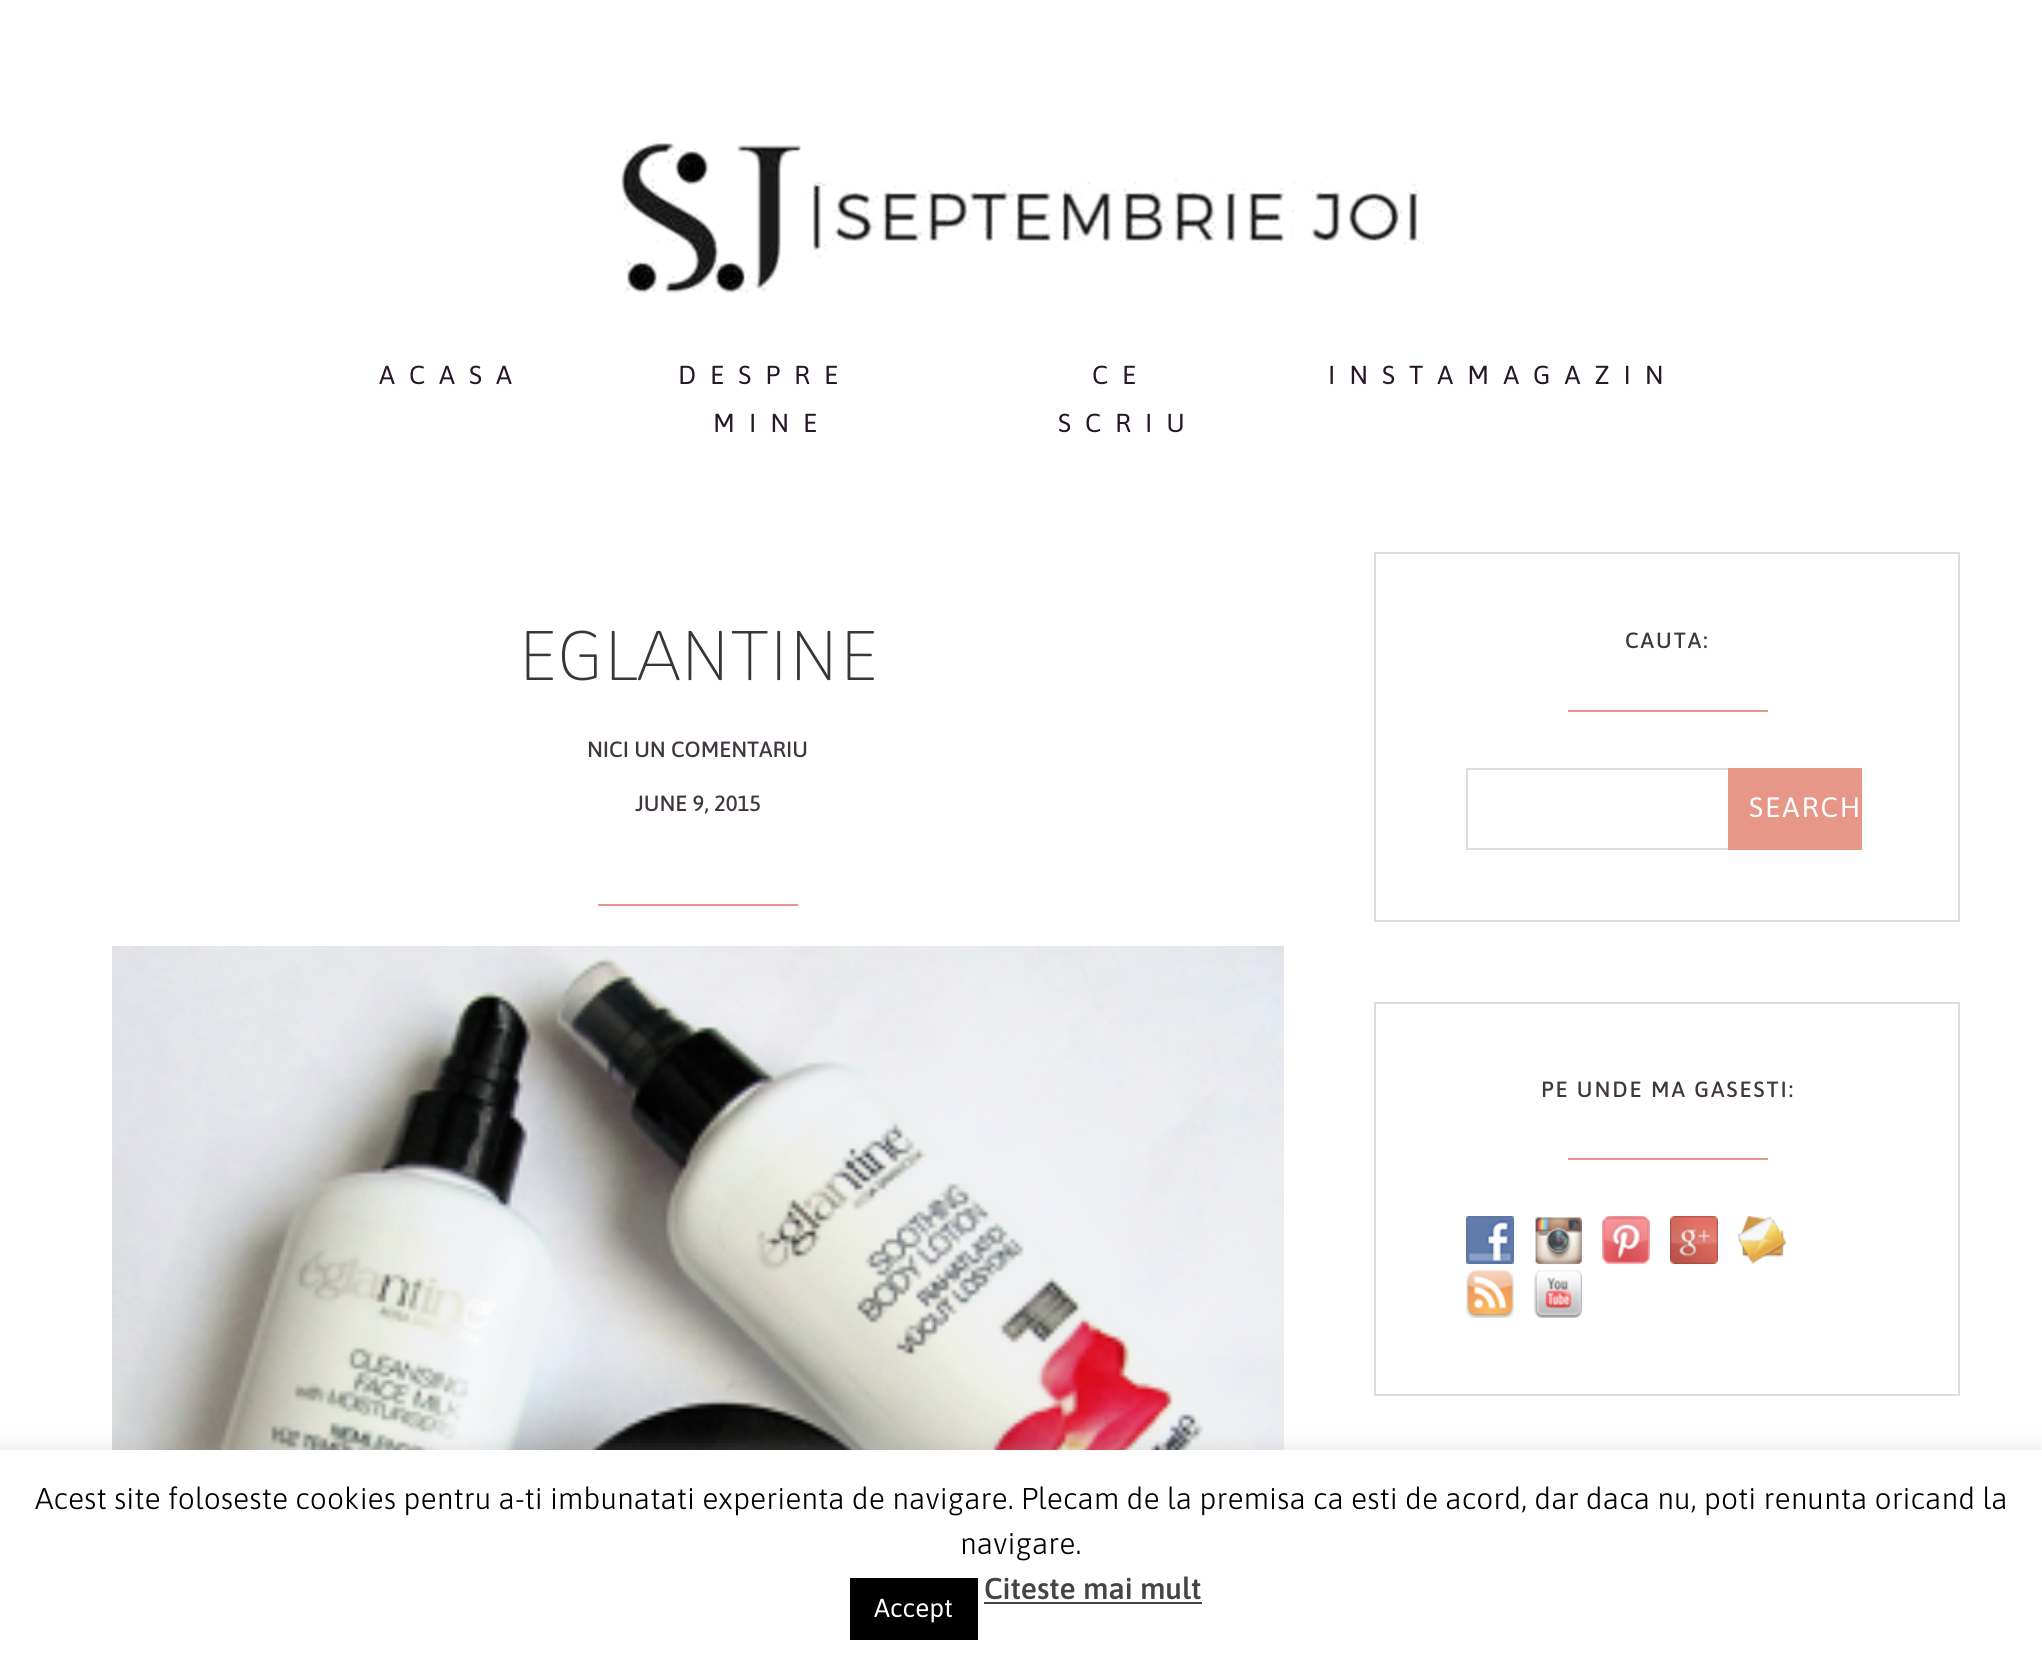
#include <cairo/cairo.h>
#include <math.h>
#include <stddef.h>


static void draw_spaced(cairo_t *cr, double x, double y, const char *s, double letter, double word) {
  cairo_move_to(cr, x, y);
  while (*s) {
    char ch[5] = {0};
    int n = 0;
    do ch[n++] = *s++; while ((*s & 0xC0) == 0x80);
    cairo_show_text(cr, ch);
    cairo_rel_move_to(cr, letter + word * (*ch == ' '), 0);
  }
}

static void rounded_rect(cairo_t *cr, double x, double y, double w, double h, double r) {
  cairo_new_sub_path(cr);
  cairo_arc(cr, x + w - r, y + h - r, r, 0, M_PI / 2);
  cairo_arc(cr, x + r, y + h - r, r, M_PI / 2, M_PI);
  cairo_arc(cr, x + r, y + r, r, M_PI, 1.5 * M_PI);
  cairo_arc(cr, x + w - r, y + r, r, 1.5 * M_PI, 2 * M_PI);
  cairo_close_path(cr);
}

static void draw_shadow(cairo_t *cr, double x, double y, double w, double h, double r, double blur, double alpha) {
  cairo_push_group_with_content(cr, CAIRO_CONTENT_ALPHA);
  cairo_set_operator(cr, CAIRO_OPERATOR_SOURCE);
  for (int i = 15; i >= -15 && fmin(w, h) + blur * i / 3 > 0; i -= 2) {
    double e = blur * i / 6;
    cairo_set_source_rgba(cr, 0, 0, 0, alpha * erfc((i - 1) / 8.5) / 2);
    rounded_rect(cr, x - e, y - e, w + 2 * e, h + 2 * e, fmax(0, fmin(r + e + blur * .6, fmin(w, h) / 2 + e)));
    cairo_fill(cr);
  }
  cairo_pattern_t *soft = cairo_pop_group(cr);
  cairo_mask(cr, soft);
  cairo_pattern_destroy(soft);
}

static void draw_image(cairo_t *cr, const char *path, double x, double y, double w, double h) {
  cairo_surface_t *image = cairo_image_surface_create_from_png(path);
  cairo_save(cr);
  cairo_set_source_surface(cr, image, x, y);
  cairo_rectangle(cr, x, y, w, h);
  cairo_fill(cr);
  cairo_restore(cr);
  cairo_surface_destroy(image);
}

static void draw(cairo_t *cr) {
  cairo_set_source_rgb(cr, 1, 1, 1);
  cairo_paint(cr);
  draw_image(cr, "images/1.png", 621, 140, 803, 153);
  cairo_set_source_rgb(cr, 231 / 255.0, 151 / 255.0, 136 / 255.0);
  cairo_rectangle(cr, 598, 904, 200, 2);
  cairo_fill(cr);
  draw_image(cr, "images/2.png", 112, 946, 1172, 504);
  cairo_rectangle(cr, 1375, 553, 584, 368);
  cairo_set_source_rgb(cr, 221 / 255.0, 221 / 255.0, 221 / 255.0);
  cairo_stroke(cr);
  cairo_set_source_rgb(cr, 231 / 255.0, 151 / 255.0, 136 / 255.0);
  cairo_rectangle(cr, 1568, 710, 200, 2);
  cairo_fill(cr);
  cairo_set_source_rgb(cr, 221 / 255.0, 221 / 255.0, 221 / 255.0);
  cairo_rectangle(cr, 1466, 768, 262, 2);
  cairo_fill(cr);
  cairo_rectangle(cr, 1466, 848, 262, 2);
  cairo_fill(cr);
  cairo_rectangle(cr, 1466, 768, 2, 82);
  cairo_fill(cr);
  cairo_set_source_rgb(cr, 231 / 255.0, 151 / 255.0, 136 / 255.0);
  cairo_rectangle(cr, 1728, 768, 134, 82);
  cairo_fill(cr);
  cairo_rectangle(cr, 1375, 1003, 584, 392);
  cairo_set_source_rgb(cr, 221 / 255.0, 221 / 255.0, 221 / 255.0);
  cairo_stroke(cr);
  cairo_set_source_rgb(cr, 231 / 255.0, 151 / 255.0, 136 / 255.0);
  cairo_rectangle(cr, 1568, 1158, 200, 2);
  cairo_fill(cr);
  draw_image(cr, "images/3.png", 1466, 1216, 48, 48);
  draw_image(cr, "images/4.png", 1535, 1217, 47, 47);
  draw_image(cr, "images/5.png", 1602, 1216, 48, 48);
  draw_image(cr, "images/6.png", 1670, 1216, 48, 48);
  draw_image(cr, "images/7.png", 1738, 1216, 48, 48);
  draw_image(cr, "images/8.png", 1466, 1270, 48, 48);
  draw_image(cr, "images/9.png", 1534, 1270, 48, 48);
  cairo_set_source_rgb(cr, 172 / 255.0, 171 / 255.0, 171 / 255.0);
  draw_shadow(cr, 0, 1448, 2042, 210, 0, 10, 0.3);
  cairo_set_source_rgb(cr, 1, 1, 1);
  cairo_rectangle(cr, 0, 1450, 2042, 210);
  cairo_fill(cr);
  cairo_set_source_rgb(cr, 68 / 255.0, 68 / 255.0, 68 / 255.0);
  cairo_rectangle(cr, 984, 1602, 218, 2);
  cairo_fill(cr);
  cairo_set_source_rgb(cr, 0, 0, 0);
  cairo_rectangle(cr, 850, 1578, 128, 62);
  cairo_fill(cr);
  cairo_select_font_face(cr, "Asap", CAIRO_FONT_SLANT_NORMAL, CAIRO_FONT_WEIGHT_NORMAL);
  cairo_set_font_size(cr, 26);
  cairo_set_source_rgb(cr, 39 / 255.0, 23 / 255.0, 39 / 255.0);
  draw_spaced(cr, 379, 384, "ACASA", 14, 0);
  draw_spaced(cr, 678, 384, "DESPRE", 14, 0);
  draw_spaced(cr, 713, 432, "MINE", 14, 0);
  draw_spaced(cr, 1092, 384, "CE", 14, 0);
  draw_spaced(cr, 1058, 432, "SCRIU", 14, 0);
  draw_spaced(cr, 1328, 384, "INSTAMAGAZIN", 14, 0);
  cairo_select_font_face(cr, "Asap Thin", CAIRO_FONT_SLANT_NORMAL, CAIRO_FONT_WEIGHT_NORMAL);
  cairo_set_font_size(cr, 70);
  cairo_set_source_rgb(cr, 55 / 255.0, 55 / 255.0, 55 / 255.0);
  cairo_move_to(cr, 518, 680);
  cairo_show_text(cr, "EGLANTINE");
  cairo_select_font_face(cr, "Asap Medium", CAIRO_FONT_SLANT_NORMAL, CAIRO_FONT_WEIGHT_NORMAL);
  cairo_set_font_size(cr, 22);
  cairo_set_source_rgb(cr, 64 / 255.0, 54 / 255.0, 64 / 255.0);
  cairo_move_to(cr, 587, 757);
  cairo_show_text(cr, "NICI UN COMENTARIU");
  cairo_move_to(cr, 635, 811);
  cairo_show_text(cr, "JUNE 9, 2015");
  draw_spaced(cr, 1625, 648, "CAUTA:", 2, 0);
  cairo_select_font_face(cr, "Asap", CAIRO_FONT_SLANT_NORMAL, CAIRO_FONT_WEIGHT_NORMAL);
  cairo_set_font_size(cr, 28);
  cairo_set_source_rgb(cr, 1, 1, 1);
  draw_spaced(cr, 1749, 817, "SEARCH", 2, 0);
  cairo_select_font_face(cr, "Asap Medium", CAIRO_FONT_SLANT_NORMAL, CAIRO_FONT_WEIGHT_NORMAL);
  cairo_set_font_size(cr, 22);
  cairo_set_source_rgb(cr, 64 / 255.0, 54 / 255.0, 64 / 255.0);
  draw_spaced(cr, 1541, 1097, "PE UNDE MA GASESTI:", 2, 0);
  cairo_select_font_face(cr, "Asap Light", CAIRO_FONT_SLANT_NORMAL, CAIRO_FONT_WEIGHT_NORMAL);
  cairo_set_font_size(cr, 30);
  cairo_set_source_rgb(cr, 0, 0, 0);
  cairo_move_to(cr, 35, 1509);
  cairo_show_text(cr, "Acest site foloseste cookies pentru a-ti imbunatati experienta de navigare. Plecam de la premisa ca esti de acord, dar daca nu, poti renunta oricand la");
  cairo_move_to(cr, 960, 1554);
  cairo_show_text(cr, "navigare.");
  cairo_select_font_face(cr, "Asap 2 Medium", CAIRO_FONT_SLANT_NORMAL, CAIRO_FONT_WEIGHT_NORMAL);
  cairo_set_source_rgb(cr, 68 / 255.0, 68 / 255.0, 68 / 255.0);
  cairo_move_to(cr, 984, 1599);
  cairo_show_text(cr, "Citeste mai mult");
  cairo_select_font_face(cr, "Asap", CAIRO_FONT_SLANT_NORMAL, CAIRO_FONT_WEIGHT_NORMAL);
  cairo_set_font_size(cr, 26);
  cairo_set_source_rgb(cr, 1, 1, 1);
  cairo_move_to(cr, 874, 1617);
  cairo_show_text(cr, "Accept");
}

int main(void) {
  cairo_surface_t *surface = cairo_image_surface_create(CAIRO_FORMAT_RGB24, 2042, 1660);
  cairo_t *cr = cairo_create(surface);
  cairo_font_options_t *options = cairo_font_options_create();
  cairo_font_options_set_hint_metrics(options, CAIRO_HINT_METRICS_OFF);
  cairo_font_options_set_hint_style(options, CAIRO_HINT_STYLE_NONE);
  cairo_set_font_options(cr, options);
  cairo_set_miter_limit(cr, 4);
  draw(cr);
  cairo_surface_write_to_png(surface, "out.png");
  cairo_font_options_destroy(options);
  cairo_destroy(cr);
  cairo_surface_destroy(surface);
  return 0;
}
